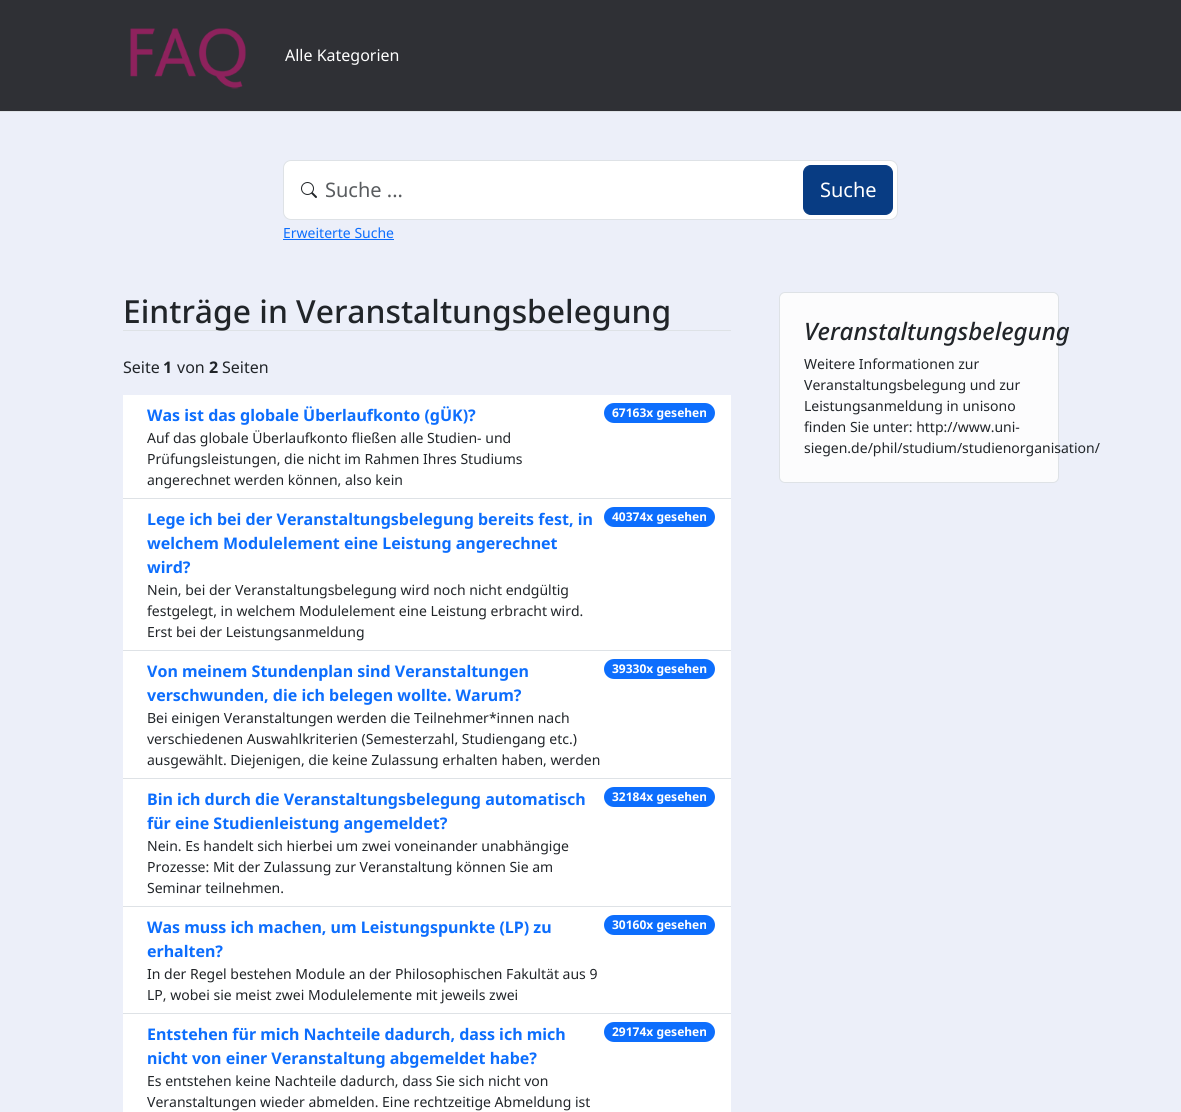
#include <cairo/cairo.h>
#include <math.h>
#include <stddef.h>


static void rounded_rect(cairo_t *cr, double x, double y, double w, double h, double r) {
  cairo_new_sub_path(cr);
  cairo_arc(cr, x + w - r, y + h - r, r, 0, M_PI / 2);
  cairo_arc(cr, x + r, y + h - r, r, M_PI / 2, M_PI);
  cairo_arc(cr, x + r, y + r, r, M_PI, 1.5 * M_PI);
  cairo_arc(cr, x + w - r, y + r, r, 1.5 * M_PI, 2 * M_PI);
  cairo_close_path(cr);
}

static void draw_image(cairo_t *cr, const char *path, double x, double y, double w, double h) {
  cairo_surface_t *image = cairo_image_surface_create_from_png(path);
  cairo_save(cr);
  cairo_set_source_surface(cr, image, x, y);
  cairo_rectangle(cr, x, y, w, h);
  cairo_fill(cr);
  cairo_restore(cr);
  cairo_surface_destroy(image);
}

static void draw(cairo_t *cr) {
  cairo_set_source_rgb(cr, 236 / 255.0, 239 / 255.0, 249 / 255.0);
  cairo_paint(cr);
  cairo_set_source_rgb(cr, 47 / 255.0, 48 / 255.0, 53 / 255.0);
  cairo_rectangle(cr, 0, 0, 1181, 111);
  cairo_fill(cr);
  cairo_set_source_rgb(cr, 222 / 255.0, 226 / 255.0, 230 / 255.0);
  cairo_rectangle(cr, 0, 111, 1181, 1);
  cairo_fill(cr);
  draw_image(cr, "images/1.png", 130, 28, 116, 61);
  cairo_set_source_rgb(cr, 1, 1, 1);
  rounded_rect(cr, 283.5, 160.5, 614, 59, 7.5);
  cairo_fill_preserve(cr);
  cairo_set_source_rgb(cr, 222 / 255.0, 226 / 255.0, 230 / 255.0);
  cairo_set_line_width(cr, 1);
  cairo_stroke(cr);
  draw_image(cr, "images/2.png", 301, 182, 16, 16);
  cairo_set_source_rgb(cr, 8 / 255.0, 60 / 255.0, 131 / 255.0);
  rounded_rect(cr, 803.5, 165.5, 89, 49, 7.5);
  cairo_fill_preserve(cr);
  cairo_stroke(cr);
  cairo_set_source_rgb(cr, 13 / 255.0, 110 / 255.0, 253 / 255.0);
  cairo_rectangle(cr, 283, 239, 111, 1);
  cairo_fill(cr);
  cairo_set_source_rgb(cr, 222 / 255.0, 226 / 255.0, 230 / 255.0);
  cairo_rectangle(cr, 123, 330, 608, 1);
  cairo_fill(cr);
  cairo_set_source_rgb(cr, 1, 1, 1);
  cairo_rectangle(cr, 123, 395, 608, 103);
  cairo_fill(cr);
  cairo_set_source_rgb(cr, 222 / 255.0, 226 / 255.0, 230 / 255.0);
  cairo_rectangle(cr, 123, 498, 608, 1);
  cairo_fill(cr);
  cairo_set_source_rgb(cr, 13 / 255.0, 110 / 255.0, 253 / 255.0);
  rounded_rect(cr, 604, 403, 111, 20, 10);
  cairo_fill(cr);
  cairo_set_source_rgb(cr, 1, 1, 1);
  cairo_rectangle(cr, 123, 499, 608, 151);
  cairo_fill(cr);
  cairo_set_source_rgb(cr, 222 / 255.0, 226 / 255.0, 230 / 255.0);
  cairo_rectangle(cr, 123, 650, 608, 1);
  cairo_fill(cr);
  cairo_set_source_rgb(cr, 13 / 255.0, 110 / 255.0, 253 / 255.0);
  rounded_rect(cr, 604, 507, 111, 20, 10);
  cairo_fill(cr);
  cairo_set_source_rgb(cr, 1, 1, 1);
  cairo_rectangle(cr, 123, 651, 608, 127);
  cairo_fill(cr);
  cairo_set_source_rgb(cr, 222 / 255.0, 226 / 255.0, 230 / 255.0);
  cairo_rectangle(cr, 123, 778, 608, 1);
  cairo_fill(cr);
  cairo_set_source_rgb(cr, 13 / 255.0, 110 / 255.0, 253 / 255.0);
  rounded_rect(cr, 604, 659, 111, 20, 10);
  cairo_fill(cr);
  cairo_set_source_rgb(cr, 1, 1, 1);
  cairo_rectangle(cr, 123, 779, 608, 127);
  cairo_fill(cr);
  cairo_set_source_rgb(cr, 222 / 255.0, 226 / 255.0, 230 / 255.0);
  cairo_rectangle(cr, 123, 906, 608, 1);
  cairo_fill(cr);
  cairo_set_source_rgb(cr, 13 / 255.0, 110 / 255.0, 253 / 255.0);
  rounded_rect(cr, 604, 787, 111, 20, 10);
  cairo_fill(cr);
  cairo_set_source_rgb(cr, 1, 1, 1);
  cairo_rectangle(cr, 123, 907, 608, 106);
  cairo_fill(cr);
  cairo_set_source_rgb(cr, 222 / 255.0, 226 / 255.0, 230 / 255.0);
  cairo_rectangle(cr, 123, 1013, 608, 1);
  cairo_fill(cr);
  cairo_set_source_rgb(cr, 13 / 255.0, 110 / 255.0, 253 / 255.0);
  rounded_rect(cr, 604, 915, 111, 20, 10);
  cairo_fill(cr);
  cairo_set_source_rgb(cr, 1, 1, 1);
  cairo_rectangle(cr, 123, 1014, 608, 98);
  cairo_fill(cr);
  cairo_set_source_rgb(cr, 13 / 255.0, 110 / 255.0, 253 / 255.0);
  rounded_rect(cr, 604, 1022, 111, 20, 10);
  cairo_fill(cr);
  cairo_set_source_rgb(cr, 252 / 255.0, 252 / 255.0, 253 / 255.0);
  rounded_rect(cr, 779.5, 292.5, 279, 190, 5.5);
  cairo_fill_preserve(cr);
  cairo_set_source_rgb(cr, 222 / 255.0, 226 / 255.0, 230 / 255.0);
  cairo_stroke(cr);
  cairo_select_font_face(cr, "Noto Sans", CAIRO_FONT_SLANT_NORMAL, CAIRO_FONT_WEIGHT_NORMAL);
  cairo_set_font_size(cr, 16);
  cairo_set_source_rgb(cr, 1, 1, 1);
  cairo_move_to(cr, 285, 61);
  cairo_show_text(cr, "Alle Kategorien");
  cairo_set_font_size(cr, 20);
  cairo_set_source_rgb(cr, 89 / 255.0, 92 / 255.0, 95 / 255.0);
  cairo_move_to(cr, 325, 197);
  cairo_show_text(cr, "Suche ...");
  cairo_set_source_rgb(cr, 1, 1, 1);
  cairo_move_to(cr, 820, 197);
  cairo_show_text(cr, "Suche");
  cairo_set_font_size(cr, 14);
  cairo_set_source_rgb(cr, 13 / 255.0, 110 / 255.0, 253 / 255.0);
  cairo_move_to(cr, 283, 238);
  cairo_show_text(cr, "Erweiterte Suche");
  cairo_select_font_face(cr, "Noto Sans Medium", CAIRO_FONT_SLANT_NORMAL, CAIRO_FONT_WEIGHT_NORMAL);
  cairo_set_font_size(cr, 31.8);
  cairo_set_source_rgb(cr, 33 / 255.0, 37 / 255.0, 41 / 255.0);
  cairo_move_to(cr, 123, 323);
  cairo_show_text(cr, "Einträge in Veranstaltungsbelegung");
  cairo_select_font_face(cr, "Noto Sans", CAIRO_FONT_SLANT_NORMAL, CAIRO_FONT_WEIGHT_NORMAL);
  cairo_set_font_size(cr, 16);
  cairo_move_to(cr, 123, 373);
  cairo_show_text(cr, "Seite");
  cairo_select_font_face(cr, "Noto Sans", CAIRO_FONT_SLANT_NORMAL, CAIRO_FONT_WEIGHT_BOLD);
  cairo_move_to(cr, 163, 373);
  cairo_show_text(cr, "1");
  cairo_select_font_face(cr, "Noto Sans", CAIRO_FONT_SLANT_NORMAL, CAIRO_FONT_WEIGHT_NORMAL);
  cairo_move_to(cr, 177, 373);
  cairo_show_text(cr, "von");
  cairo_select_font_face(cr, "Noto Sans", CAIRO_FONT_SLANT_NORMAL, CAIRO_FONT_WEIGHT_BOLD);
  cairo_move_to(cr, 209, 373);
  cairo_show_text(cr, "2");
  cairo_select_font_face(cr, "Noto Sans", CAIRO_FONT_SLANT_NORMAL, CAIRO_FONT_WEIGHT_NORMAL);
  cairo_move_to(cr, 222, 373);
  cairo_show_text(cr, "Seiten");
  cairo_select_font_face(cr, "Noto Sans", CAIRO_FONT_SLANT_NORMAL, CAIRO_FONT_WEIGHT_BOLD);
  cairo_set_source_rgb(cr, 13 / 255.0, 110 / 255.0, 253 / 255.0);
  cairo_move_to(cr, 147, 421);
  cairo_show_text(cr, "Was ist das globale Überlaufkonto (gÜK)?");
  cairo_select_font_face(cr, "Noto Sans", CAIRO_FONT_SLANT_NORMAL, CAIRO_FONT_WEIGHT_NORMAL);
  cairo_set_font_size(cr, 14);
  cairo_set_source_rgb(cr, 33 / 255.0, 37 / 255.0, 41 / 255.0);
  cairo_move_to(cr, 147, 443);
  cairo_show_text(cr, "Auf das globale Überlaufkonto fließen alle Studien- und");
  cairo_move_to(cr, 147, 464);
  cairo_show_text(cr, "Prüfungsleistungen, die nicht im Rahmen Ihres Studiums");
  cairo_move_to(cr, 147, 485);
  cairo_show_text(cr, "angerechnet werden können, also kein");
  cairo_select_font_face(cr, "Noto Sans", CAIRO_FONT_SLANT_NORMAL, CAIRO_FONT_WEIGHT_BOLD);
  cairo_set_font_size(cr, 12);
  cairo_set_source_rgb(cr, 1, 1, 1);
  cairo_move_to(cr, 612, 417);
  cairo_show_text(cr, "67163x gesehen");
  cairo_set_font_size(cr, 16);
  cairo_set_source_rgb(cr, 13 / 255.0, 110 / 255.0, 253 / 255.0);
  cairo_move_to(cr, 147, 525);
  cairo_show_text(cr, "Lege ich bei der Veranstaltungsbelegung bereits fest, in");
  cairo_move_to(cr, 147, 549);
  cairo_show_text(cr, "welchem Modulelement eine Leistung angerechnet");
  cairo_move_to(cr, 147, 573);
  cairo_show_text(cr, "wird?");
  cairo_select_font_face(cr, "Noto Sans", CAIRO_FONT_SLANT_NORMAL, CAIRO_FONT_WEIGHT_NORMAL);
  cairo_set_font_size(cr, 14);
  cairo_set_source_rgb(cr, 33 / 255.0, 37 / 255.0, 41 / 255.0);
  cairo_move_to(cr, 147, 595);
  cairo_show_text(cr, "Nein, bei der Veranstaltungsbelegung wird noch nicht endgültig");
  cairo_move_to(cr, 147, 616);
  cairo_show_text(cr, "festgelegt, in welchem Modulelement eine Leistung erbracht wird.");
  cairo_move_to(cr, 147, 637);
  cairo_show_text(cr, "Erst bei der Leistungsanmeldung");
  cairo_select_font_face(cr, "Noto Sans", CAIRO_FONT_SLANT_NORMAL, CAIRO_FONT_WEIGHT_BOLD);
  cairo_set_font_size(cr, 12);
  cairo_set_source_rgb(cr, 1, 1, 1);
  cairo_move_to(cr, 612, 521);
  cairo_show_text(cr, "40374x gesehen");
  cairo_set_font_size(cr, 16);
  cairo_set_source_rgb(cr, 13 / 255.0, 110 / 255.0, 253 / 255.0);
  cairo_move_to(cr, 147, 677);
  cairo_show_text(cr, "Von meinem Stundenplan sind Veranstaltungen");
  cairo_move_to(cr, 147, 701);
  cairo_show_text(cr, "verschwunden, die ich belegen wollte. Warum?");
  cairo_select_font_face(cr, "Noto Sans", CAIRO_FONT_SLANT_NORMAL, CAIRO_FONT_WEIGHT_NORMAL);
  cairo_set_font_size(cr, 14);
  cairo_set_source_rgb(cr, 33 / 255.0, 37 / 255.0, 41 / 255.0);
  cairo_move_to(cr, 147, 723);
  cairo_show_text(cr, "Bei einigen Veranstaltungen werden die Teilnehmer*innen nach");
  cairo_move_to(cr, 147, 744);
  cairo_show_text(cr, "verschiedenen Auswahlkriterien (Semesterzahl, Studiengang etc.)");
  cairo_move_to(cr, 147, 765);
  cairo_show_text(cr, "ausgewählt. Diejenigen, die keine Zulassung erhalten haben, werden");
  cairo_select_font_face(cr, "Noto Sans", CAIRO_FONT_SLANT_NORMAL, CAIRO_FONT_WEIGHT_BOLD);
  cairo_set_font_size(cr, 12);
  cairo_set_source_rgb(cr, 1, 1, 1);
  cairo_move_to(cr, 612, 673);
  cairo_show_text(cr, "39330x gesehen");
  cairo_set_font_size(cr, 16);
  cairo_set_source_rgb(cr, 13 / 255.0, 110 / 255.0, 253 / 255.0);
  cairo_move_to(cr, 147, 805);
  cairo_show_text(cr, "Bin ich durch die Veranstaltungsbelegung automatisch");
  cairo_move_to(cr, 147, 829);
  cairo_show_text(cr, "für eine Studienleistung angemeldet?");
  cairo_select_font_face(cr, "Noto Sans", CAIRO_FONT_SLANT_NORMAL, CAIRO_FONT_WEIGHT_NORMAL);
  cairo_set_font_size(cr, 14);
  cairo_set_source_rgb(cr, 33 / 255.0, 37 / 255.0, 41 / 255.0);
  cairo_move_to(cr, 147, 851);
  cairo_show_text(cr, "Nein. Es handelt sich hierbei um zwei voneinander unabhängige");
  cairo_move_to(cr, 147, 872);
  cairo_show_text(cr, "Prozesse: Mit der Zulassung zur Veranstaltung können Sie am");
  cairo_move_to(cr, 147, 893);
  cairo_show_text(cr, "Seminar teilnehmen.");
  cairo_select_font_face(cr, "Noto Sans", CAIRO_FONT_SLANT_NORMAL, CAIRO_FONT_WEIGHT_BOLD);
  cairo_set_font_size(cr, 12);
  cairo_set_source_rgb(cr, 1, 1, 1);
  cairo_move_to(cr, 612, 801);
  cairo_show_text(cr, "32184x gesehen");
  cairo_set_font_size(cr, 16);
  cairo_set_source_rgb(cr, 13 / 255.0, 110 / 255.0, 253 / 255.0);
  cairo_move_to(cr, 147, 933);
  cairo_show_text(cr, "Was muss ich machen, um Leistungspunkte (LP) zu");
  cairo_move_to(cr, 147, 957);
  cairo_show_text(cr, "erhalten?");
  cairo_select_font_face(cr, "Noto Sans", CAIRO_FONT_SLANT_NORMAL, CAIRO_FONT_WEIGHT_NORMAL);
  cairo_set_font_size(cr, 14);
  cairo_set_source_rgb(cr, 33 / 255.0, 37 / 255.0, 41 / 255.0);
  cairo_move_to(cr, 147, 979);
  cairo_show_text(cr, "In der Regel bestehen Module an der Philosophischen Fakultät aus 9");
  cairo_move_to(cr, 147, 1000);
  cairo_show_text(cr, "LP, wobei sie meist zwei Modulelemente mit jeweils zwei");
  cairo_select_font_face(cr, "Noto Sans", CAIRO_FONT_SLANT_NORMAL, CAIRO_FONT_WEIGHT_BOLD);
  cairo_set_font_size(cr, 12);
  cairo_set_source_rgb(cr, 1, 1, 1);
  cairo_move_to(cr, 612, 929);
  cairo_show_text(cr, "30160x gesehen");
  cairo_set_font_size(cr, 16);
  cairo_set_source_rgb(cr, 13 / 255.0, 110 / 255.0, 253 / 255.0);
  cairo_move_to(cr, 147, 1040);
  cairo_show_text(cr, "Entstehen für mich Nachteile dadurch, dass ich mich");
  cairo_move_to(cr, 147, 1064);
  cairo_show_text(cr, "nicht von einer Veranstaltung abgemeldet habe?");
  cairo_select_font_face(cr, "Noto Sans", CAIRO_FONT_SLANT_NORMAL, CAIRO_FONT_WEIGHT_NORMAL);
  cairo_set_font_size(cr, 14);
  cairo_set_source_rgb(cr, 33 / 255.0, 37 / 255.0, 41 / 255.0);
  cairo_move_to(cr, 147, 1086);
  cairo_show_text(cr, "Es entstehen keine Nachteile dadurch, dass Sie sich nicht von");
  cairo_move_to(cr, 147, 1107);
  cairo_show_text(cr, "Veranstaltungen wieder abmelden. Eine rechtzeitige Abmeldung ist");
  cairo_select_font_face(cr, "Noto Sans", CAIRO_FONT_SLANT_NORMAL, CAIRO_FONT_WEIGHT_BOLD);
  cairo_set_font_size(cr, 12);
  cairo_set_source_rgb(cr, 1, 1, 1);
  cairo_move_to(cr, 612, 1036);
  cairo_show_text(cr, "29174x gesehen");
  cairo_select_font_face(cr, "Noto Sans Medium", CAIRO_FONT_SLANT_ITALIC, CAIRO_FONT_WEIGHT_NORMAL);
  cairo_set_font_size(cr, 24);
  cairo_set_source_rgb(cr, 33 / 255.0, 37 / 255.0, 41 / 255.0);
  cairo_move_to(cr, 804, 340);
  cairo_show_text(cr, "Veranstaltungsbelegung");
  cairo_select_font_face(cr, "Noto Sans", CAIRO_FONT_SLANT_NORMAL, CAIRO_FONT_WEIGHT_NORMAL);
  cairo_set_font_size(cr, 14);
  cairo_move_to(cr, 804, 369);
  cairo_show_text(cr, "Weitere Informationen zur");
  cairo_move_to(cr, 804, 390);
  cairo_show_text(cr, "Veranstaltungsbelegung und zur");
  cairo_move_to(cr, 804, 411);
  cairo_show_text(cr, "Leistungsanmeldung in unisono");
  cairo_move_to(cr, 804, 432);
  cairo_show_text(cr, "finden Sie unter: http://www.uni-");
  cairo_move_to(cr, 804, 453);
  cairo_show_text(cr, "siegen.de/phil/studium/studienorganisation/");
}

int main(void) {
  cairo_surface_t *surface = cairo_image_surface_create(CAIRO_FORMAT_RGB24, 1181, 1112);
  cairo_t *cr = cairo_create(surface);
  cairo_font_options_t *options = cairo_font_options_create();
  cairo_font_options_set_hint_metrics(options, CAIRO_HINT_METRICS_OFF);
  cairo_font_options_set_hint_style(options, CAIRO_HINT_STYLE_NONE);
  cairo_set_font_options(cr, options);
  cairo_set_miter_limit(cr, 4);
  draw(cr);
  cairo_surface_write_to_png(surface, "out.png");
  cairo_font_options_destroy(options);
  cairo_destroy(cr);
  cairo_surface_destroy(surface);
  return 0;
}
